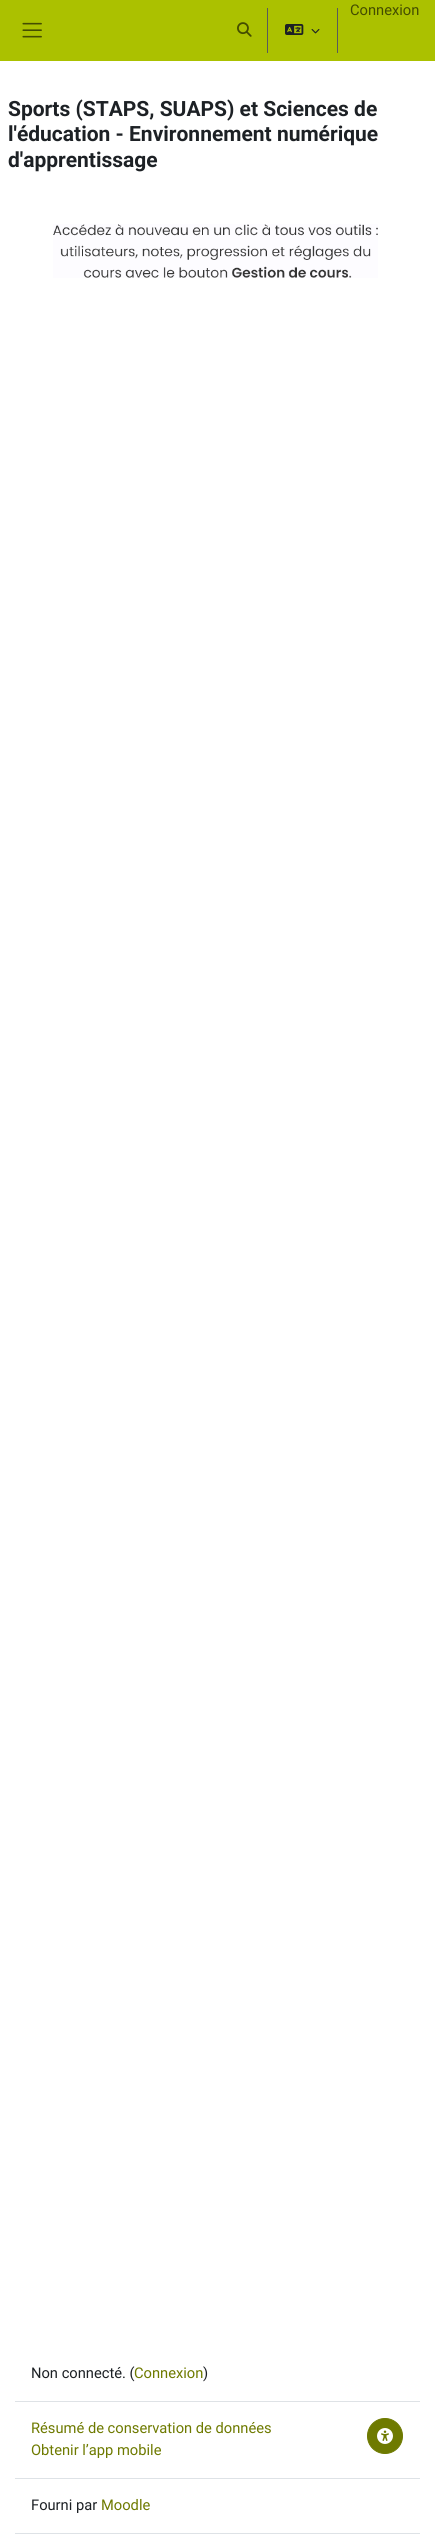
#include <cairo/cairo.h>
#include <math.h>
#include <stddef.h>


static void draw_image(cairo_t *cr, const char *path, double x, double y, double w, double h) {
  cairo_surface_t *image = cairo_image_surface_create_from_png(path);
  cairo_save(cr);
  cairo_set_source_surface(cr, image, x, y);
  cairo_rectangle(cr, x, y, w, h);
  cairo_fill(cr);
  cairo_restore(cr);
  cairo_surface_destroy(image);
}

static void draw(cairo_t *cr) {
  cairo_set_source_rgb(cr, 1, 1, 1);
  cairo_paint(cr);
  cairo_set_source_rgb(cr, 171 / 255.0, 193 / 255.0, 0);
  cairo_rectangle(cr, 0, 0, 435, 61);
  cairo_fill(cr);
  draw_image(cr, "images/1.png", 237, 22, 15, 15);
  cairo_set_source_rgb(cr, 89 / 255.0, 90 / 255.0, 92 / 255.0);
  cairo_rectangle(cr, 267, 8, 1, 45);
  cairo_fill(cr);
  draw_image(cr, "images/2.png", 285, 24, 19, 11);
  draw_image(cr, "images/3.png", 311, 29, 9, 5);
  cairo_rectangle(cr, 337, 8, 1, 45);
  cairo_fill(cr);
  draw_image(cr, "images/4.png", 22, 22, 20, 16);
  draw_image(cr, "images/5.png", 53, 224, 325, 54);
  cairo_set_source_rgb(cr, 110 / 255.0, 122 / 255.0, 0);
  cairo_arc(cr, 385, 2436, 17.5, 0, 2 * M_PI);
  cairo_fill_preserve(cr);
  cairo_set_line_width(cr, 1);
  cairo_stroke(cr);
  draw_image(cr, "images/6.png", 377, 2428, 16, 16);
  cairo_set_source_rgb(cr, 222 / 255.0, 226 / 255.0, 230 / 255.0);
  cairo_rectangle(cr, 15, 2401, 405, 1);
  cairo_fill(cr);
  cairo_rectangle(cr, 15, 2478, 405, 1);
  cairo_fill(cr);
  cairo_rectangle(cr, 15, 2533, 405, 1);
  cairo_fill(cr);
  cairo_select_font_face(cr, "Roboto", CAIRO_FONT_SLANT_NORMAL, CAIRO_FONT_WEIGHT_NORMAL);
  cairo_set_font_size(cr, 14.7);
  cairo_set_source_rgb(cr, 68 / 255.0, 77 / 255.0, 0);
  cairo_move_to(cr, 350, 15);
  cairo_show_text(cr, "Connexion");
  cairo_select_font_face(cr, "Roboto", CAIRO_FONT_SLANT_NORMAL, CAIRO_FONT_WEIGHT_BOLD);
  cairo_set_font_size(cr, 21);
  cairo_set_source_rgb(cr, 29 / 255.0, 33 / 255.0, 37 / 255.0);
  cairo_move_to(cr, 8, 116);
  cairo_show_text(cr, "Sports (STAPS, SUAPS) et Sciences de");
  cairo_move_to(cr, 8, 141);
  cairo_show_text(cr, "l'éducation - Environnement numérique");
  cairo_move_to(cr, 8, 167);
  cairo_show_text(cr, "d'apprentissage");
  cairo_select_font_face(cr, "Roboto", CAIRO_FONT_SLANT_NORMAL, CAIRO_FONT_WEIGHT_NORMAL);
  cairo_set_font_size(cr, 14.7);
  cairo_move_to(cr, 31, 2378);
  cairo_show_text(cr, "Non connecté. (");
  cairo_set_source_rgb(cr, 110 / 255.0, 122 / 255.0, 0);
  cairo_move_to(cr, 134, 2378);
  cairo_show_text(cr, "Connexion");
  cairo_set_source_rgb(cr, 29 / 255.0, 33 / 255.0, 37 / 255.0);
  cairo_move_to(cr, 203, 2378);
  cairo_show_text(cr, ")");
  cairo_set_source_rgb(cr, 110 / 255.0, 122 / 255.0, 0);
  cairo_move_to(cr, 31, 2433);
  cairo_show_text(cr, "Résumé de conservation de données");
  cairo_move_to(cr, 31, 2455);
  cairo_show_text(cr, "Obtenir l’app mobile");
  cairo_set_source_rgb(cr, 29 / 255.0, 33 / 255.0, 37 / 255.0);
  cairo_move_to(cr, 31, 2510);
  cairo_show_text(cr, "Fourni par");
  cairo_set_source_rgb(cr, 110 / 255.0, 122 / 255.0, 0);
  cairo_move_to(cr, 101, 2510);
  cairo_show_text(cr, "Moodle");
}

int main(void) {
  cairo_surface_t *surface = cairo_image_surface_create(CAIRO_FORMAT_RGB24, 435, 2534);
  cairo_t *cr = cairo_create(surface);
  cairo_font_options_t *options = cairo_font_options_create();
  cairo_font_options_set_hint_metrics(options, CAIRO_HINT_METRICS_OFF);
  cairo_font_options_set_hint_style(options, CAIRO_HINT_STYLE_NONE);
  cairo_set_font_options(cr, options);
  cairo_set_miter_limit(cr, 4);
  draw(cr);
  cairo_surface_write_to_png(surface, "out.png");
  cairo_font_options_destroy(options);
  cairo_destroy(cr);
  cairo_surface_destroy(surface);
  return 0;
}
